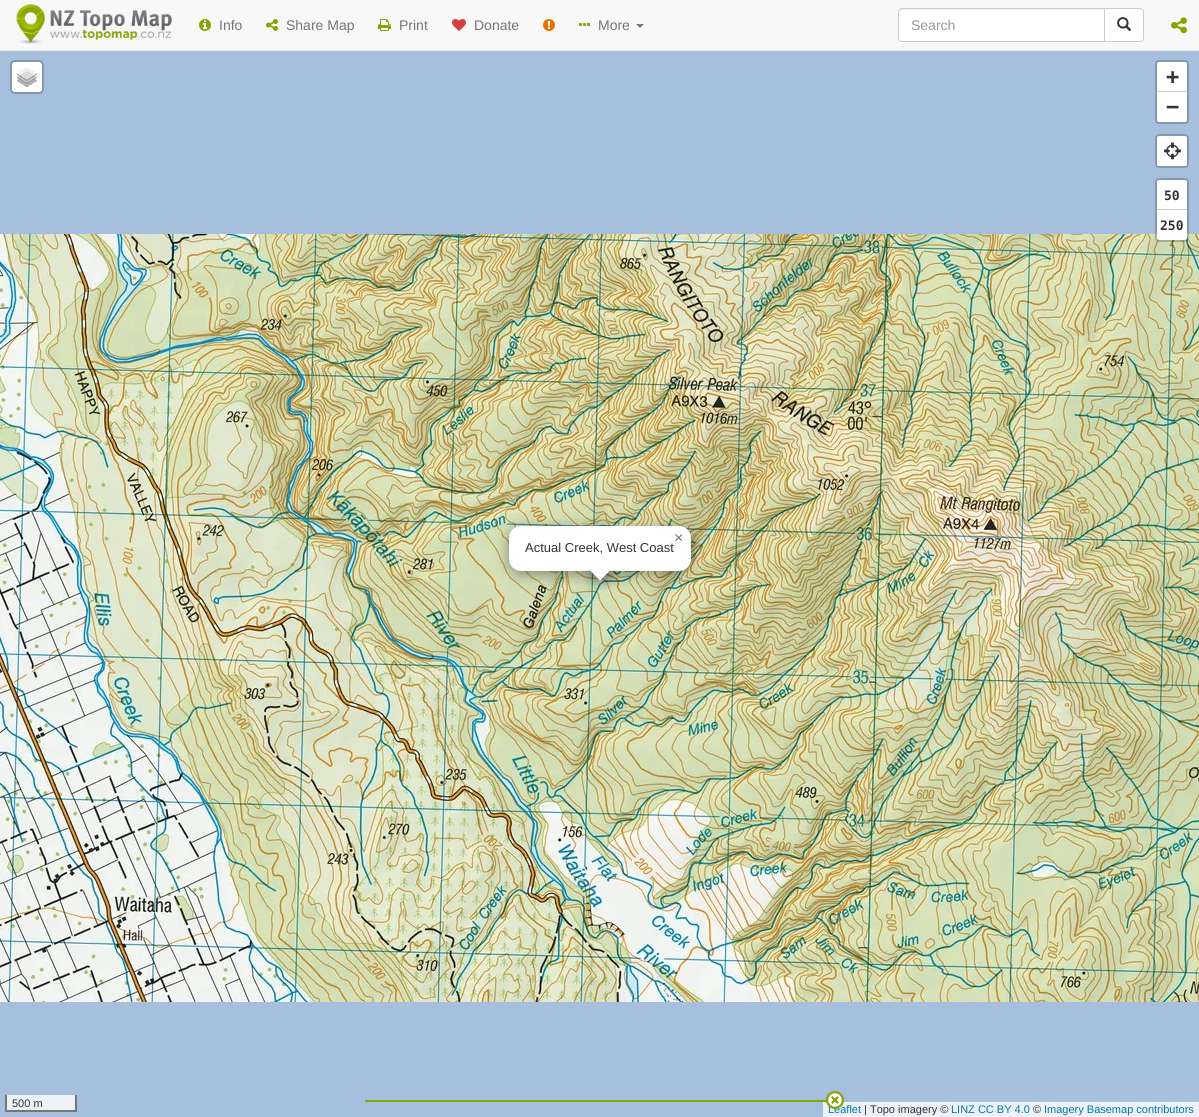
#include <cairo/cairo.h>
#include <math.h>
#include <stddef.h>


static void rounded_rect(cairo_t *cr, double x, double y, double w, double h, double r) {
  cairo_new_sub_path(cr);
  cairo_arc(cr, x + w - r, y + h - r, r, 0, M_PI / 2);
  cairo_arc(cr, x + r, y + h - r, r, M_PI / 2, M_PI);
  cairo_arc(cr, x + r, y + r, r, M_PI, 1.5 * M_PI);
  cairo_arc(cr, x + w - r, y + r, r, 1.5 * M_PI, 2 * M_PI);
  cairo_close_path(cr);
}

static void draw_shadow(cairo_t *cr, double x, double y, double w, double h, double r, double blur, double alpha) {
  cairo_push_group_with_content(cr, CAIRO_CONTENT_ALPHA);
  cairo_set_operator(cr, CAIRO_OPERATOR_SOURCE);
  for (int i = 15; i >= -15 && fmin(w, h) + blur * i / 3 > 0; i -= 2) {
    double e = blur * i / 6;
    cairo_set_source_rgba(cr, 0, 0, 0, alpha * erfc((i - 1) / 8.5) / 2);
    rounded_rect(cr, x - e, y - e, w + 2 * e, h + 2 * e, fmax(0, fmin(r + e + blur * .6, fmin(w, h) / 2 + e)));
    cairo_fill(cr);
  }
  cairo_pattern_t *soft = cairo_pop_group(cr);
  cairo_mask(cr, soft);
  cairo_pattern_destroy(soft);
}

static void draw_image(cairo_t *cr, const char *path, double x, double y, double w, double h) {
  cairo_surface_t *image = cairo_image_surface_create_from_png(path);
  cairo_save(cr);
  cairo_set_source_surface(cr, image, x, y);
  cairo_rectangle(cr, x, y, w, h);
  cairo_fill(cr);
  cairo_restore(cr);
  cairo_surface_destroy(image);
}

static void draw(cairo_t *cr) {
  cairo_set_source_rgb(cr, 165 / 255.0, 191 / 255.0, 221 / 255.0);
  cairo_paint(cr);
  cairo_set_source_rgb(cr, 248 / 255.0, 248 / 255.0, 248 / 255.0);
  cairo_rectangle(cr, 0, 0, 1199, 50);
  cairo_fill(cr);
  cairo_set_source_rgb(cr, 231 / 255.0, 231 / 255.0, 231 / 255.0);
  cairo_rectangle(cr, 0, 50, 1199, 1);
  cairo_fill(cr);
  draw_image(cr, "images/1.png", 16, 4, 156, 40);
  draw_image(cr, "images/2.png", 199, 19, 12, 12);
  draw_image(cr, "images/3.png", 266, 19, 12, 12);
  draw_image(cr, "images/4.png", 378, 19, 13, 12);
  draw_image(cr, "images/5.png", 452, 19, 14, 12);
  draw_image(cr, "images/6.png", 543, 19, 12, 12);
  draw_image(cr, "images/7.png", 579, 23, 11, 3);
  cairo_set_source_rgb(cr, 119 / 255.0, 119 / 255.0, 119 / 255.0);
  cairo_new_path(cr);
  cairo_move_to(cr, 636, 24);
  cairo_line_to(cr, 644, 24);
  cairo_line_to(cr, 640, 28);
  cairo_close_path(cr);
  cairo_fill(cr);
  cairo_set_source_rgb(cr, 1, 1, 1);
  cairo_new_path(cr);
  cairo_move_to(cr, 902, 8);
  cairo_line_to(cr, 1105, 8);
  cairo_line_to(cr, 1105, 42);
  cairo_line_to(cr, 902, 42);
  cairo_curve_to(cr, 900, 42, 898, 40, 898, 38);
  cairo_line_to(cr, 898, 12);
  cairo_curve_to(cr, 898, 10, 900, 8, 902, 8);
  cairo_close_path(cr);
  cairo_fill(cr);
  cairo_set_source_rgb(cr, 236 / 255.0, 236 / 255.0, 236 / 255.0);
  cairo_new_path(cr);
  cairo_move_to(cr, 902, 10);
  cairo_line_to(cr, 1104, 10);
  cairo_line_to(cr, 1104, 9);
  cairo_line_to(cr, 901, 9);
  cairo_curve_to(cr, 899, 10, 899, 11, 899, 13);
  cairo_curve_to(cr, 899, 11, 900, 10, 902, 10);
  cairo_close_path(cr);
  cairo_fill(cr);
  cairo_new_path(cr);
  cairo_move_to(cr, 902, 8.5);
  cairo_line_to(cr, 1104.5, 8.5);
  cairo_line_to(cr, 1104.5, 41.5);
  cairo_line_to(cr, 902, 41.5);
  cairo_curve_to(cr, 900, 41.5, 898.5, 40, 898.5, 38);
  cairo_line_to(cr, 898.5, 12);
  cairo_curve_to(cr, 898.5, 10, 900, 8.5, 902, 8.5);
  cairo_close_path(cr);
  cairo_set_source_rgb(cr, 204 / 255.0, 204 / 255.0, 204 / 255.0);
  cairo_set_line_width(cr, 1);
  cairo_stroke(cr);
  cairo_set_source_rgb(cr, 1, 1, 1);
  cairo_new_path(cr);
  cairo_move_to(cr, 1104.5, 8.5);
  cairo_line_to(cr, 1140, 8.5);
  cairo_curve_to(cr, 1142, 8.5, 1143.5, 10, 1143.5, 12);
  cairo_line_to(cr, 1143.5, 38);
  cairo_curve_to(cr, 1143.5, 40, 1142, 41.5, 1140, 41.5);
  cairo_line_to(cr, 1104.5, 41.5);
  cairo_close_path(cr);
  cairo_fill_preserve(cr);
  cairo_set_source_rgb(cr, 204 / 255.0, 204 / 255.0, 204 / 255.0);
  cairo_stroke(cr);
  draw_image(cr, "images/8.png", 1117, 17, 15, 14);
  draw_image(cr, "images/9.png", 1171, 17, 16, 17);
  cairo_set_source_rgb(cr, 1, 1, 1);
  rounded_rect(cr, 11, 61, 32, 32, 4);
  cairo_fill_preserve(cr);
  cairo_set_source_rgb(cr, 132 / 255.0, 153 / 255.0, 177 / 255.0);
  cairo_set_line_width(cr, 2);
  cairo_stroke(cr);
  draw_image(cr, "images/10.png", 17, 67, 20, 20);
  rounded_rect(cr, 1156, 61, 32, 62, 3);
  cairo_stroke(cr);
  cairo_set_source_rgb(cr, 1, 1, 1);
  cairo_new_path(cr);
  cairo_move_to(cr, 1159, 62);
  cairo_line_to(cr, 1185, 62);
  cairo_curve_to(cr, 1186, 62, 1187, 63, 1187, 64);
  cairo_line_to(cr, 1187, 92);
  cairo_line_to(cr, 1157, 92);
  cairo_line_to(cr, 1157, 64);
  cairo_curve_to(cr, 1157, 63, 1158, 62, 1159, 62);
  cairo_close_path(cr);
  cairo_fill(cr);
  cairo_set_source_rgb(cr, 204 / 255.0, 204 / 255.0, 204 / 255.0);
  cairo_rectangle(cr, 1157, 91, 30, 1);
  cairo_fill(cr);
  cairo_set_source_rgb(cr, 1, 1, 1);
  cairo_new_path(cr);
  cairo_move_to(cr, 1157, 92);
  cairo_line_to(cr, 1187, 92);
  cairo_line_to(cr, 1187, 120);
  cairo_curve_to(cr, 1187, 121, 1186, 122, 1185, 122);
  cairo_line_to(cr, 1159, 122);
  cairo_curve_to(cr, 1158, 122, 1157, 121, 1157, 120);
  cairo_close_path(cr);
  cairo_fill(cr);
  rounded_rect(cr, 1156, 135, 32, 32, 3);
  cairo_set_source_rgb(cr, 132 / 255.0, 153 / 255.0, 177 / 255.0);
  cairo_stroke(cr);
  cairo_set_source_rgb(cr, 1, 1, 1);
  rounded_rect(cr, 1157, 136, 30, 30, 2);
  cairo_fill(cr);
  draw_image(cr, "images/11.png", 1164, 142, 17, 18);
  draw_image(cr, "images/17.png", 903, 234, 256, 256);
  draw_image(cr, "images/18.png", 1159, 234, 40, 256);
  rounded_rect(cr, 1156, 179, 32, 62, 3);
  cairo_set_source_rgba(cr, 0, 0, 0, 0.2);
  cairo_stroke(cr);
  cairo_set_source_rgb(cr, 1, 1, 1);
  cairo_new_path(cr);
  cairo_move_to(cr, 1159, 180);
  cairo_line_to(cr, 1185, 180);
  cairo_curve_to(cr, 1186, 180, 1187, 181, 1187, 182);
  cairo_line_to(cr, 1187, 210);
  cairo_line_to(cr, 1157, 210);
  cairo_line_to(cr, 1157, 182);
  cairo_curve_to(cr, 1157, 181, 1158, 180, 1159, 180);
  cairo_close_path(cr);
  cairo_fill(cr);
  cairo_set_source_rgb(cr, 204 / 255.0, 204 / 255.0, 204 / 255.0);
  cairo_rectangle(cr, 1157, 209, 30, 1);
  cairo_fill(cr);
  cairo_set_source_rgb(cr, 1, 1, 1);
  cairo_new_path(cr);
  cairo_move_to(cr, 1157, 210);
  cairo_line_to(cr, 1187, 210);
  cairo_line_to(cr, 1187, 238);
  cairo_curve_to(cr, 1187, 239, 1186, 240, 1185, 240);
  cairo_line_to(cr, 1159, 240);
  cairo_curve_to(cr, 1158, 240, 1157, 239, 1157, 238);
  cairo_close_path(cr);
  cairo_fill(cr);
  cairo_set_source_rgb(cr, 237 / 255.0, 242 / 255.0, 248 / 255.0);
  cairo_rectangle(cr, 7, 1095, 68, 15);
  cairo_fill(cr);
  cairo_set_source_rgb(cr, 119 / 255.0, 119 / 255.0, 119 / 255.0);
  cairo_rectangle(cr, 75, 1095, 2, 17);
  cairo_fill(cr);
  cairo_rectangle(cr, 5, 1110, 72, 2);
  cairo_fill(cr);
  cairo_rectangle(cr, 5, 1095, 2, 17);
  cairo_fill(cr);
  cairo_set_source_rgb(cr, 134 / 255.0, 164 / 255.0, 6 / 255.0);
  cairo_rectangle(cr, 365, 1100, 470, 2);
  cairo_fill(cr);
  cairo_set_source_rgb(cr, 237 / 255.0, 242 / 255.0, 248 / 255.0);
  cairo_rectangle(cr, 823, 1102, 376, 15);
  cairo_fill(cr);
  draw_image(cr, "images/13.png", 0, 234, 135, 256);
  draw_image(cr, "images/14.png", 135, 234, 256, 256);
  draw_image(cr, "images/15.png", 391, 234, 256, 256);
  draw_image(cr, "images/16.png", 647, 234, 256, 256);
  draw_image(cr, "images/19.png", 0, 490, 135, 256);
  draw_image(cr, "images/20.png", 135, 490, 256, 256);
  draw_image(cr, "images/21.png", 391, 490, 256, 256);
  draw_image(cr, "images/22.png", 647, 490, 256, 256);
  draw_image(cr, "images/23.png", 903, 490, 256, 256);
  draw_image(cr, "images/24.png", 1159, 490, 40, 256);
  draw_image(cr, "images/25.png", 0, 746, 135, 256);
  draw_image(cr, "images/26.png", 135, 746, 256, 256);
  draw_image(cr, "images/27.png", 391, 746, 256, 256);
  draw_image(cr, "images/28.png", 647, 746, 256, 256);
  draw_image(cr, "images/29.png", 903, 746, 256, 256);
  draw_image(cr, "images/30.png", 1159, 746, 40, 256);
  cairo_set_source_rgb(cr, 0, 0, 0);
  draw_shadow(cr, 509, 529, 182, 45, 12, 7, 0.4);
  cairo_set_source_rgb(cr, 1, 1, 1);
  rounded_rect(cr, 509, 526, 182, 45, 12);
  cairo_fill(cr);
  cairo_save(cr);
  cairo_rectangle(cr, 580, 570, 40, 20);
  cairo_clip(cr);
  cairo_set_source_rgb(cr, 0, 0, 0);
  draw_shadow(cr, 592, 563, 17, 17, 0, 7, 0.4);
  cairo_restore(cr);
  cairo_save(cr);
  cairo_rectangle(cr, 580, 570, 40, 20);
  cairo_clip(cr);
  cairo_new_path(cr);
  cairo_move_to(cr, 600, 556.5);
  cairo_line_to(cr, 612, 568.5);
  cairo_line_to(cr, 600, 580.5);
  cairo_line_to(cr, 588, 568.5);
  cairo_close_path(cr);
  cairo_fill(cr);
  cairo_restore(cr);
  cairo_select_font_face(cr, "Liberation Sans", CAIRO_FONT_SLANT_NORMAL, CAIRO_FONT_WEIGHT_NORMAL);
  cairo_set_font_size(cr, 14);
  cairo_set_source_rgb(cr, 117 / 255.0, 117 / 255.0, 117 / 255.0);
  cairo_move_to(cr, 219, 30);
  cairo_show_text(cr, "Info");
  cairo_move_to(cr, 286, 30);
  cairo_show_text(cr, "Share Map");
  cairo_move_to(cr, 399, 30);
  cairo_show_text(cr, "Print");
  cairo_move_to(cr, 474, 30);
  cairo_show_text(cr, "Donate");
  cairo_move_to(cr, 598, 30);
  cairo_show_text(cr, "More");
  cairo_set_source_rgb(cr, 153 / 255.0, 153 / 255.0, 153 / 255.0);
  cairo_move_to(cr, 911, 30);
  cairo_show_text(cr, "Search");
  cairo_select_font_face(cr, "DejaVu Sans Mono", CAIRO_FONT_SLANT_NORMAL, CAIRO_FONT_WEIGHT_BOLD);
  cairo_set_font_size(cr, 22);
  cairo_set_source_rgb(cr, 51 / 255.0, 51 / 255.0, 51 / 255.0);
  cairo_move_to(cr, 1166, 84);
  cairo_show_text(cr, "+");
  cairo_move_to(cr, 1166, 114);
  cairo_show_text(cr, "−");
  cairo_set_font_size(cr, 13);
  cairo_move_to(cr, 1164, 200);
  cairo_show_text(cr, "50");
  cairo_move_to(cr, 1160, 230);
  cairo_show_text(cr, "250");
  cairo_select_font_face(cr, "Liberation Sans", CAIRO_FONT_SLANT_NORMAL, CAIRO_FONT_WEIGHT_NORMAL);
  cairo_set_font_size(cr, 11);
  cairo_move_to(cr, 12, 1107);
  cairo_show_text(cr, "500 m");
  cairo_set_source_rgb(cr, 0, 120 / 255.0, 168 / 255.0);
  cairo_move_to(cr, 828, 1113);
  cairo_show_text(cr, "Leaflet");
  draw_image(cr, "images/12.png", 826, 1091, 18, 18);
  cairo_set_source_rgb(cr, 51 / 255.0, 51 / 255.0, 51 / 255.0);
  cairo_move_to(cr, 864, 1113);
  cairo_show_text(cr, "| Topo imagery ©");
  cairo_set_source_rgb(cr, 0, 120 / 255.0, 168 / 255.0);
  cairo_move_to(cr, 951, 1113);
  cairo_show_text(cr, "LINZ CC BY 4.0");
  cairo_set_source_rgb(cr, 51 / 255.0, 51 / 255.0, 51 / 255.0);
  cairo_move_to(cr, 1033, 1113);
  cairo_show_text(cr, "©");
  cairo_set_source_rgb(cr, 0, 120 / 255.0, 168 / 255.0);
  cairo_move_to(cr, 1044, 1113);
  cairo_show_text(cr, "Imagery Basemap contributors");
  cairo_set_font_size(cr, 16);
  cairo_set_source_rgb(cr, 117 / 255.0, 117 / 255.0, 117 / 255.0);
  cairo_move_to(cr, 674, 543);
  cairo_show_text(cr, "×");
  cairo_set_font_size(cr, 13);
  cairo_set_source_rgb(cr, 51 / 255.0, 51 / 255.0, 51 / 255.0);
  cairo_move_to(cr, 525, 552);
  cairo_show_text(cr, "Actual Creek, West Coast");
}

int main(void) {
  cairo_surface_t *surface = cairo_image_surface_create(CAIRO_FORMAT_RGB24, 1199, 1117);
  cairo_t *cr = cairo_create(surface);
  cairo_font_options_t *options = cairo_font_options_create();
  cairo_font_options_set_hint_metrics(options, CAIRO_HINT_METRICS_OFF);
  cairo_font_options_set_hint_style(options, CAIRO_HINT_STYLE_NONE);
  cairo_set_font_options(cr, options);
  cairo_set_miter_limit(cr, 4);
  draw(cr);
  cairo_surface_write_to_png(surface, "out.png");
  cairo_font_options_destroy(options);
  cairo_destroy(cr);
  cairo_surface_destroy(surface);
  return 0;
}
